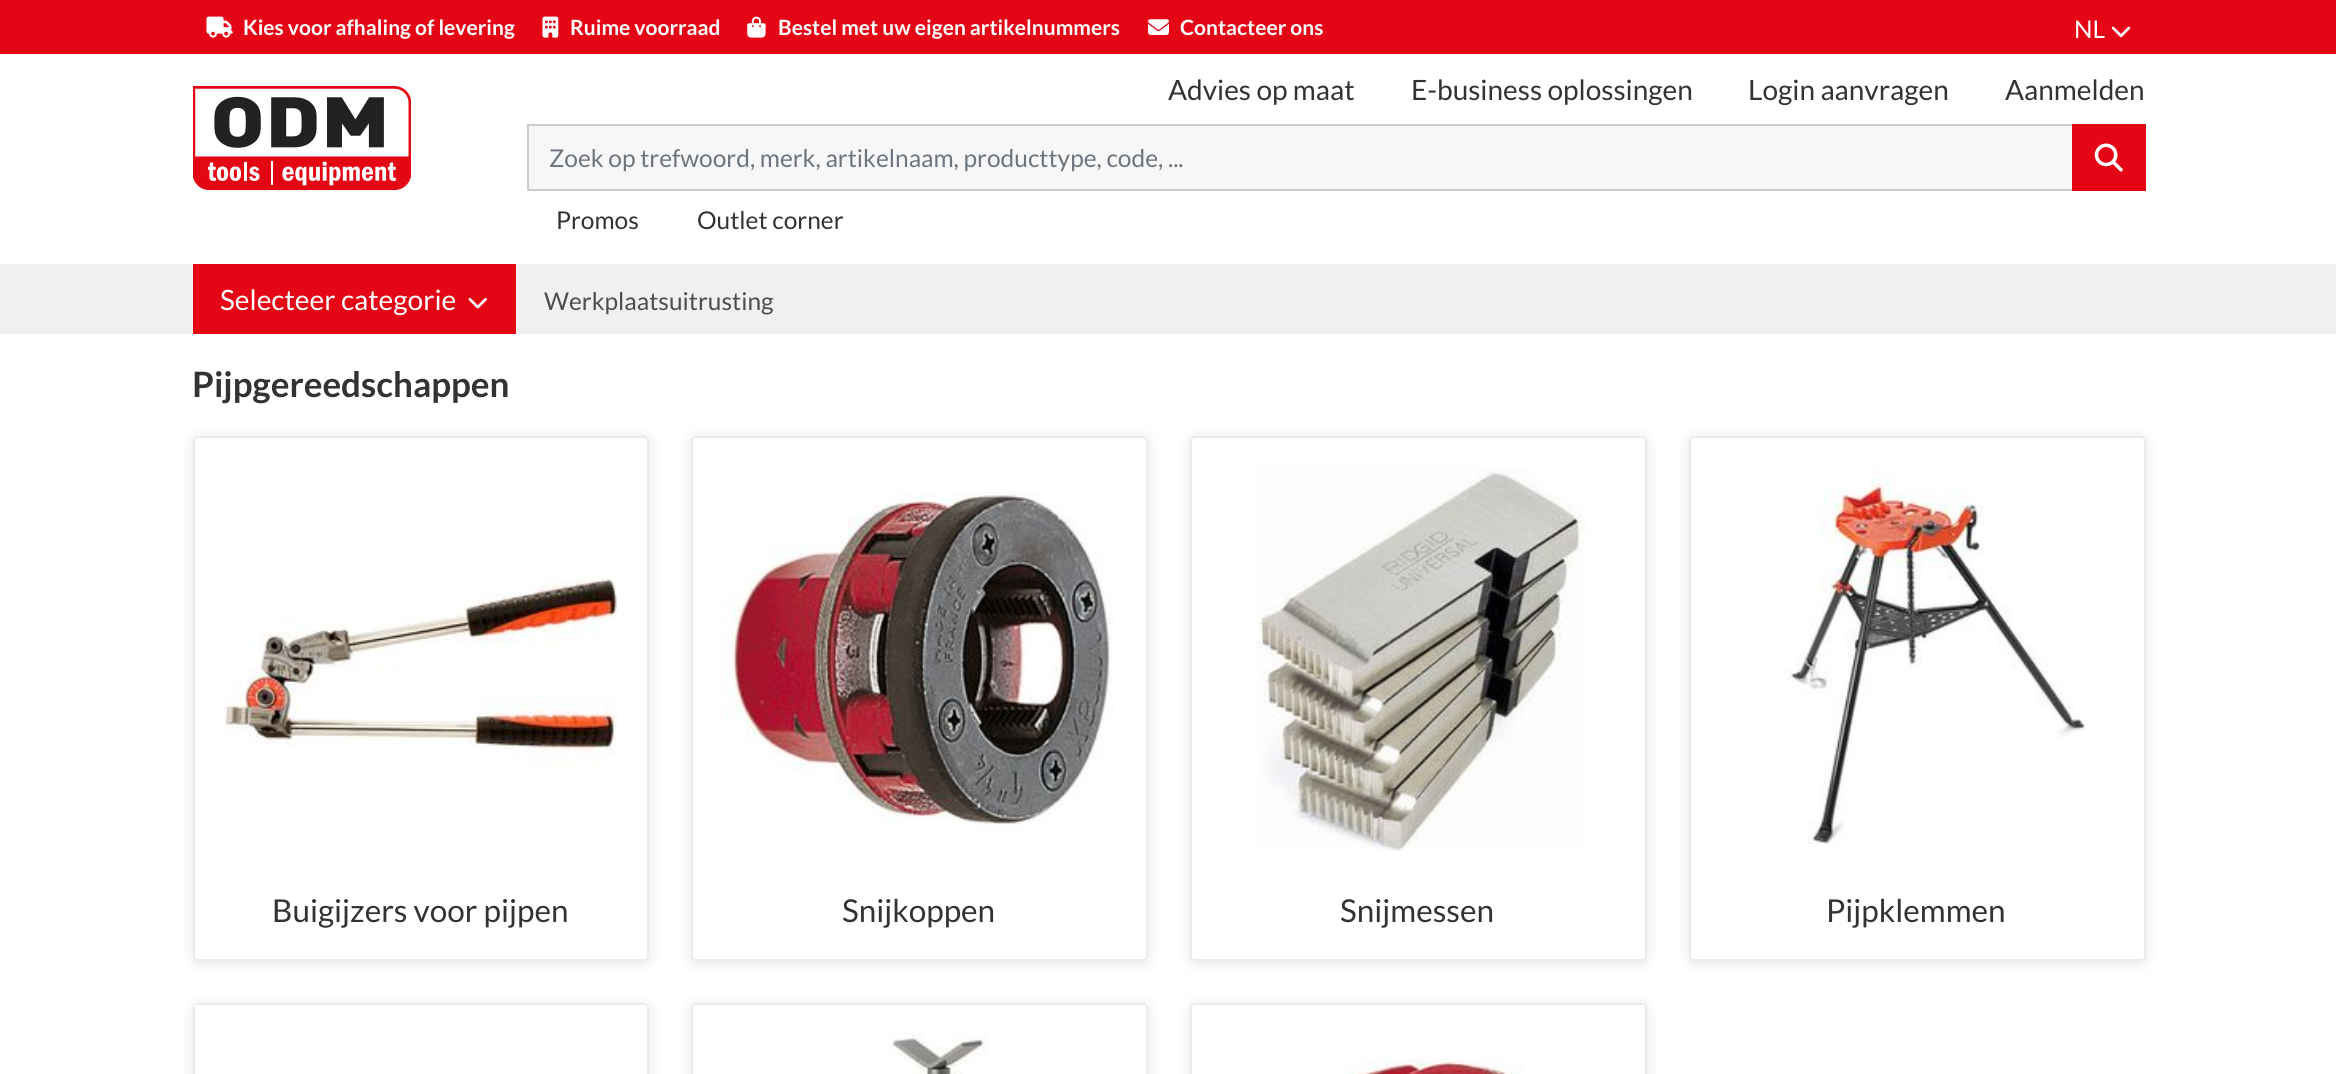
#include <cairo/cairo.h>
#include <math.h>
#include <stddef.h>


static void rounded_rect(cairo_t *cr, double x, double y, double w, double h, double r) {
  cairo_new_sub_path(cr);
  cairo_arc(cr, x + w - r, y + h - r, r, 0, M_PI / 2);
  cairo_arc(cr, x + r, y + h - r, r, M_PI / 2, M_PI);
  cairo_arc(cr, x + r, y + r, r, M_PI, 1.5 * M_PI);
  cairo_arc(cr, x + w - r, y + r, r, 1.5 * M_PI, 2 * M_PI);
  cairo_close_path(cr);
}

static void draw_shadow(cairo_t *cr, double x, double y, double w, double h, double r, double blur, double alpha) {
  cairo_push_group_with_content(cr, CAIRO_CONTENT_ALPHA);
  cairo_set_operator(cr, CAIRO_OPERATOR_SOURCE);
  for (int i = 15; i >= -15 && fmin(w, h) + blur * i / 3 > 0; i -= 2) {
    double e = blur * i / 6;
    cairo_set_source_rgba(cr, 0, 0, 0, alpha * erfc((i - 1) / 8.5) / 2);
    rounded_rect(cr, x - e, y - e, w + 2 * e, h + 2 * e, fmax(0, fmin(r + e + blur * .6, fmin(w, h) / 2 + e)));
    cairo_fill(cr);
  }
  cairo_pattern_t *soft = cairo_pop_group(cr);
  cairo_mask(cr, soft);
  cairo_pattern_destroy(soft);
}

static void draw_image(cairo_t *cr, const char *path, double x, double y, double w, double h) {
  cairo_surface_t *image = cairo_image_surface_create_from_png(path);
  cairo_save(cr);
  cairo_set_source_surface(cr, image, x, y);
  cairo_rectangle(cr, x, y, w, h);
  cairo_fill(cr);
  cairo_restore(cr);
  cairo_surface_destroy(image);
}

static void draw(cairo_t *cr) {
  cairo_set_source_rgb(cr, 1, 1, 1);
  cairo_paint(cr);
  cairo_set_source_rgb(cr, 229 / 255.0, 6 / 255.0, 21 / 255.0);
  cairo_rectangle(cr, 0, 0, 2336, 54);
  cairo_fill(cr);
  draw_image(cr, "images/1.png", 206, 16, 27, 22);
  draw_image(cr, "images/2.png", 542, 16, 17, 22);
  draw_image(cr, "images/3.png", 747, 16, 19, 22);
  draw_image(cr, "images/4.png", 1148, 19, 21, 16);
  draw_image(cr, "images/5.png", 2111, 26, 20, 12);
  draw_image(cr, "images/6.png", 193, 86, 218, 105);
  cairo_set_source_rgb(cr, 247 / 255.0, 247 / 255.0, 247 / 255.0);
  cairo_rectangle(cr, 528, 125, 1545, 65);
  cairo_fill_preserve(cr);
  cairo_set_source_rgb(cr, 204 / 255.0, 204 / 255.0, 204 / 255.0);
  cairo_stroke(cr);
  cairo_set_source_rgb(cr, 229 / 255.0, 6 / 255.0, 21 / 255.0);
  cairo_rectangle(cr, 2072, 124, 74, 67);
  cairo_fill(cr);
  draw_image(cr, "images/7.png", 2094, 143, 29, 29);
  cairo_set_source_rgb(cr, 240 / 255.0, 240 / 255.0, 240 / 255.0);
  cairo_rectangle(cr, 0, 264, 2336, 70);
  cairo_fill(cr);
  cairo_set_source_rgb(cr, 229 / 255.0, 6 / 255.0, 21 / 255.0);
  cairo_rectangle(cr, 193, 264, 323, 70);
  cairo_fill(cr);
  draw_image(cr, "images/8.png", 468, 297, 19, 12);
  cairo_set_source_rgb(cr, 0, 0, 0);
  draw_shadow(cr, 193, 438, 456, 525, 5, 7, 0.1);
  cairo_set_source_rgb(cr, 1, 1, 1);
  rounded_rect(cr, 194, 437, 454, 523, 4);
  cairo_fill_preserve(cr);
  cairo_set_source_rgb(cr, 235 / 255.0, 235 / 255.0, 235 / 255.0);
  cairo_stroke(cr);
  draw_image(cr, "images/9.png", 222, 576, 397, 194);
  cairo_set_source_rgb(cr, 0, 0, 0);
  draw_shadow(cr, 691, 438, 457, 525, 5, 7, 0.1);
  cairo_set_source_rgb(cr, 1, 1, 1);
  rounded_rect(cr, 692, 437, 455, 523, 4);
  cairo_fill_preserve(cr);
  cairo_set_source_rgb(cr, 235 / 255.0, 235 / 255.0, 235 / 255.0);
  cairo_stroke(cr);
  draw_image(cr, "images/10.png", 721, 491, 394, 340);
  cairo_set_source_rgb(cr, 0, 0, 0);
  draw_shadow(cr, 1190, 438, 457, 525, 5, 7, 0.1);
  cairo_set_source_rgb(cr, 1, 1, 1);
  rounded_rect(cr, 1191, 437, 455, 523, 4);
  cairo_fill_preserve(cr);
  cairo_set_source_rgb(cr, 235 / 255.0, 235 / 255.0, 235 / 255.0);
  cairo_stroke(cr);
  draw_image(cr, "images/11.png", 1257, 467, 331, 384);
  cairo_set_source_rgb(cr, 0, 0, 0);
  draw_shadow(cr, 1689, 438, 457, 525, 5, 7, 0.1);
  cairo_set_source_rgb(cr, 1, 1, 1);
  rounded_rect(cr, 1690, 437, 455, 523, 4);
  cairo_fill_preserve(cr);
  cairo_set_source_rgb(cr, 235 / 255.0, 235 / 255.0, 235 / 255.0);
  cairo_stroke(cr);
  draw_image(cr, "images/12.png", 1784, 466, 303, 381);
  cairo_save(cr);
  cairo_set_fill_rule(cr, CAIRO_FILL_RULE_EVEN_ODD);
  cairo_new_path(cr);
  cairo_move_to(cr, 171, 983);
  cairo_line_to(cr, 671, 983);
  cairo_line_to(cr, 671, 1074);
  cairo_line_to(cr, 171, 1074);
  cairo_close_path(cr);
  cairo_move_to(cr, 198, 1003);
  cairo_line_to(cr, 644, 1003);
  cairo_curve_to(cr, 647, 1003, 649, 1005, 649, 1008);
  cairo_line_to(cr, 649, 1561);
  cairo_curve_to(cr, 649, 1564, 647, 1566, 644, 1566);
  cairo_line_to(cr, 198, 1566);
  cairo_curve_to(cr, 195, 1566, 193, 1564, 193, 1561);
  cairo_line_to(cr, 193, 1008);
  cairo_curve_to(cr, 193, 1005, 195, 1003, 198, 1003);
  cairo_close_path(cr);
  cairo_clip(cr);
  cairo_set_source_rgb(cr, 0, 0, 0);
  draw_shadow(cr, 193, 1005, 456, 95, 5, 7, 0.1);
  cairo_restore(cr);
  rounded_rect(cr, 194, 1004, 454, 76, 4);
  cairo_stroke(cr);
  cairo_set_source_rgb(cr, 0, 0, 0);
  draw_shadow(cr, 691, 1005, 457, 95, 5, 7, 0.1);
  cairo_set_source_rgb(cr, 1, 1, 1);
  rounded_rect(cr, 692, 1004, 455, 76, 4);
  cairo_fill_preserve(cr);
  cairo_set_source_rgb(cr, 235 / 255.0, 235 / 255.0, 235 / 255.0);
  cairo_stroke(cr);
  draw_image(cr, "images/13.png", 888, 1033, 100, 41);
  cairo_set_source_rgb(cr, 0, 0, 0);
  draw_shadow(cr, 1190, 1005, 457, 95, 5, 7, 0.1);
  cairo_set_source_rgb(cr, 1, 1, 1);
  rounded_rect(cr, 1191, 1004, 455, 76, 4);
  cairo_fill_preserve(cr);
  cairo_set_source_rgb(cr, 235 / 255.0, 235 / 255.0, 235 / 255.0);
  cairo_stroke(cr);
  draw_image(cr, "images/14.png", 1347, 1058, 177, 16);
  cairo_select_font_face(cr, "Lato", CAIRO_FONT_SLANT_NORMAL, CAIRO_FONT_WEIGHT_BOLD);
  cairo_set_font_size(cr, 21);
  cairo_set_source_rgb(cr, 1, 1, 1);
  cairo_move_to(cr, 243, 35);
  cairo_show_text(cr, "Kies voor afhaling of levering");
  cairo_move_to(cr, 570, 35);
  cairo_show_text(cr, "Ruime voorraad");
  cairo_move_to(cr, 778, 35);
  cairo_show_text(cr, "Bestel met uw eigen artikelnummers");
  cairo_move_to(cr, 1180, 35);
  cairo_show_text(cr, "Contacteer ons");
  cairo_select_font_face(cr, "Lato", CAIRO_FONT_SLANT_NORMAL, CAIRO_FONT_WEIGHT_NORMAL);
  cairo_set_font_size(cr, 24.5);
  cairo_move_to(cr, 2074, 38);
  cairo_show_text(cr, "NL");
  cairo_set_source_rgb(cr, 108 / 255.0, 117 / 255.0, 125 / 255.0);
  cairo_move_to(cr, 549, 167);
  cairo_show_text(cr, "Zoek op trefwoord, merk, artikelnaam, producttype, code, ...");
  cairo_set_font_size(cr, 28);
  cairo_set_source_rgb(cr, 51 / 255.0, 51 / 255.0, 51 / 255.0);
  cairo_move_to(cr, 1168, 100);
  cairo_show_text(cr, "Advies op maat");
  cairo_move_to(cr, 1411, 100);
  cairo_show_text(cr, "E-business oplossingen");
  cairo_move_to(cr, 1748, 100);
  cairo_show_text(cr, "Login aanvragen");
  cairo_move_to(cr, 2005, 100);
  cairo_show_text(cr, "Aanmelden");
  cairo_set_font_size(cr, 24.5);
  cairo_move_to(cr, 556, 229);
  cairo_show_text(cr, "Promos");
  cairo_move_to(cr, 697, 229);
  cairo_show_text(cr, "Outlet corner");
  cairo_set_font_size(cr, 28);
  cairo_set_source_rgb(cr, 1, 1, 1);
  cairo_move_to(cr, 220, 310);
  cairo_show_text(cr, "Selecteer categorie");
  cairo_set_font_size(cr, 24.5);
  cairo_set_source_rgb(cr, 77 / 255.0, 77 / 255.0, 77 / 255.0);
  cairo_move_to(cr, 544, 310);
  cairo_show_text(cr, "Werkplaatsuitrusting");
  cairo_select_font_face(cr, "Lato", CAIRO_FONT_SLANT_NORMAL, CAIRO_FONT_WEIGHT_BOLD);
  cairo_set_font_size(cr, 35);
  cairo_set_source_rgb(cr, 51 / 255.0, 51 / 255.0, 51 / 255.0);
  cairo_move_to(cr, 192, 397);
  cairo_show_text(cr, "Pijpgereedschappen");
  cairo_select_font_face(cr, "Lato", CAIRO_FONT_SLANT_NORMAL, CAIRO_FONT_WEIGHT_NORMAL);
  cairo_set_font_size(cr, 31.5);
  cairo_move_to(cr, 272, 922);
  cairo_show_text(cr, "Buigijzers voor pijpen");
  cairo_move_to(cr, 842, 922);
  cairo_show_text(cr, "Snijkoppen");
  cairo_move_to(cr, 1340, 922);
  cairo_show_text(cr, "Snijmessen");
  cairo_move_to(cr, 1826, 922);
  cairo_show_text(cr, "Pijpklemmen");
}

int main(void) {
  cairo_surface_t *surface = cairo_image_surface_create(CAIRO_FORMAT_RGB24, 2336, 1074);
  cairo_t *cr = cairo_create(surface);
  cairo_font_options_t *options = cairo_font_options_create();
  cairo_font_options_set_hint_metrics(options, CAIRO_HINT_METRICS_OFF);
  cairo_font_options_set_hint_style(options, CAIRO_HINT_STYLE_NONE);
  cairo_set_font_options(cr, options);
  cairo_set_miter_limit(cr, 4);
  draw(cr);
  cairo_surface_write_to_png(surface, "out.png");
  cairo_font_options_destroy(options);
  cairo_destroy(cr);
  cairo_surface_destroy(surface);
  return 0;
}
